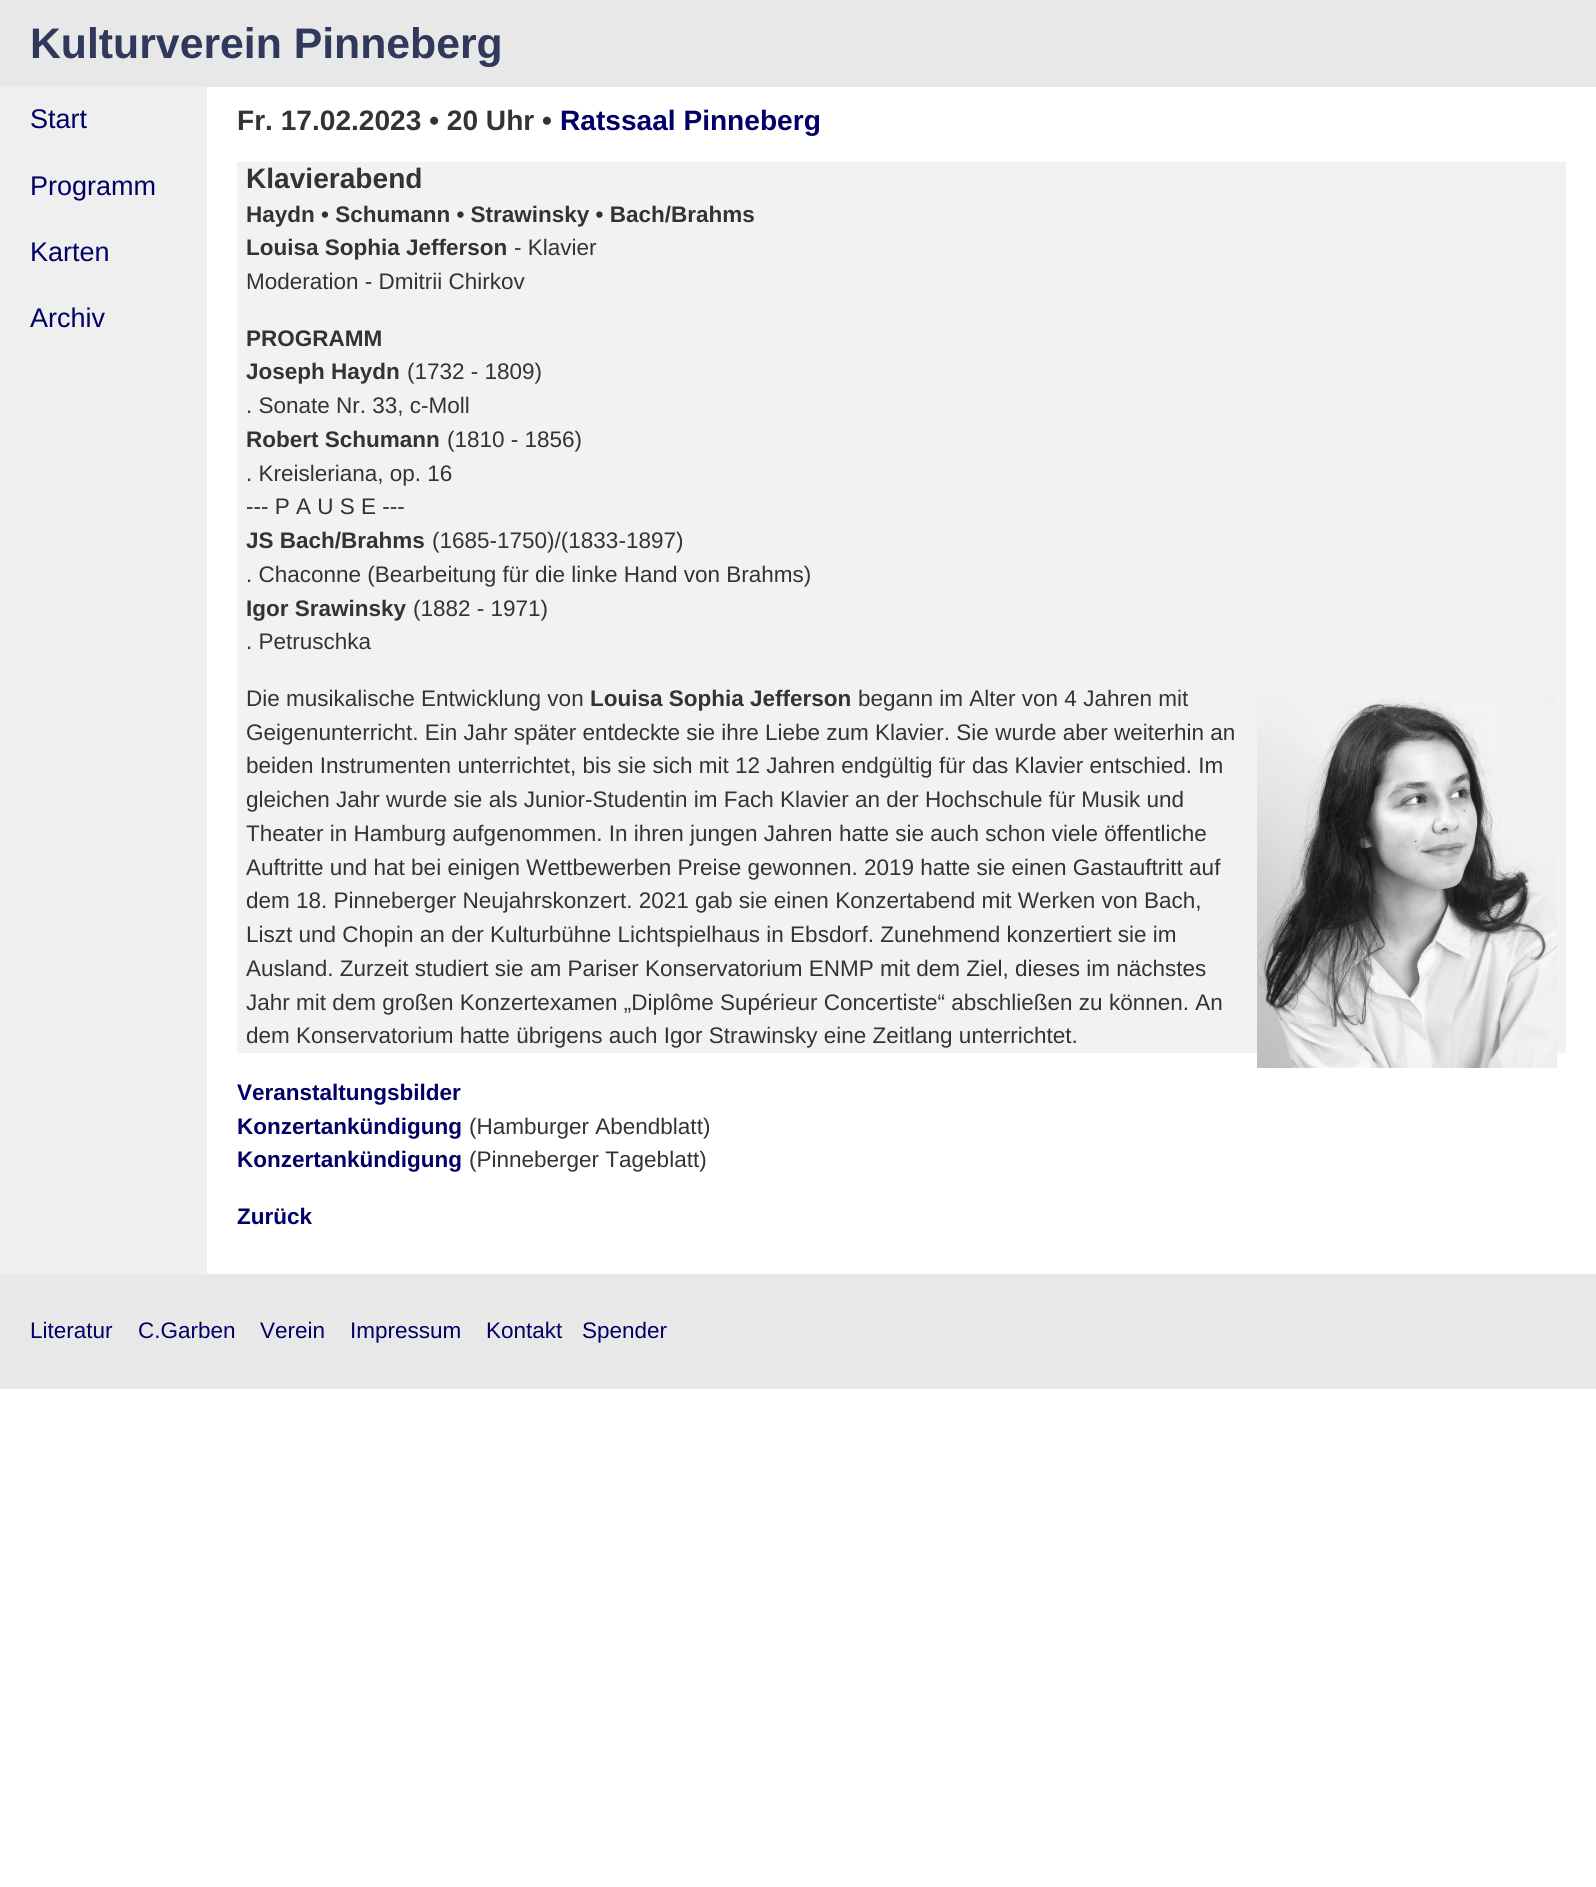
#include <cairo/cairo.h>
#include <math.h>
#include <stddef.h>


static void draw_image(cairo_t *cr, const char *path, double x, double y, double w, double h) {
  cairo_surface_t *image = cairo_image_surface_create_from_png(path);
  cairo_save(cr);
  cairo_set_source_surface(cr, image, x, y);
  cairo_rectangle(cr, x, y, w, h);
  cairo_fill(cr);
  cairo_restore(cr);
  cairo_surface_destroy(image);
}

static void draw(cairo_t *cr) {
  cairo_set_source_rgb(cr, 1, 1, 1);
  cairo_paint(cr);
  cairo_set_source_rgb(cr, 239 / 255.0, 239 / 255.0, 239 / 255.0);
  cairo_rectangle(cr, 0, 87, 207, 1187);
  cairo_fill(cr);
  cairo_set_source_rgb(cr, 232 / 255.0, 232 / 255.0, 232 / 255.0);
  cairo_rectangle(cr, 0, 0, 1596, 87);
  cairo_fill(cr);
  cairo_set_source_rgb(cr, 242 / 255.0, 242 / 255.0, 242 / 255.0);
  cairo_rectangle(cr, 237, 162, 1329, 891);
  cairo_fill(cr);
  draw_image(cr, "images/1.png", 1257, 696, 300, 372);
  cairo_set_source_rgb(cr, 232 / 255.0, 232 / 255.0, 232 / 255.0);
  cairo_rectangle(cr, 0, 1274, 1596, 115);
  cairo_fill(cr);
  cairo_select_font_face(cr, "Liberation Sans", CAIRO_FONT_SLANT_NORMAL, CAIRO_FONT_WEIGHT_BOLD);
  cairo_set_font_size(cr, 42.75);
  cairo_set_source_rgb(cr, 48 / 255.0, 57 / 255.0, 92 / 255.0);
  cairo_move_to(cr, 30, 58);
  cairo_show_text(cr, "Kulturverein Pinneberg");
  cairo_select_font_face(cr, "Liberation Sans", CAIRO_FONT_SLANT_NORMAL, CAIRO_FONT_WEIGHT_NORMAL);
  cairo_set_font_size(cr, 27);
  cairo_set_source_rgb(cr, 0, 0, 102 / 255.0);
  cairo_move_to(cr, 30, 128);
  cairo_show_text(cr, "Start");
  cairo_move_to(cr, 30, 195);
  cairo_show_text(cr, "Programm");
  cairo_move_to(cr, 30, 261);
  cairo_show_text(cr, "Karten");
  cairo_move_to(cr, 30, 327);
  cairo_show_text(cr, "Archiv");
  cairo_select_font_face(cr, "Liberation Sans", CAIRO_FONT_SLANT_NORMAL, CAIRO_FONT_WEIGHT_BOLD);
  cairo_set_font_size(cr, 28.1);
  cairo_set_source_rgb(cr, 51 / 255.0, 51 / 255.0, 51 / 255.0);
  cairo_move_to(cr, 237, 130);
  cairo_show_text(cr, "Fr. 17.02.2023 • 20 Uhr •");
  cairo_set_source_rgb(cr, 0, 0, 102 / 255.0);
  cairo_move_to(cr, 560, 130);
  cairo_show_text(cr, "Ratssaal Pinneberg");
  cairo_set_source_rgb(cr, 51 / 255.0, 51 / 255.0, 51 / 255.0);
  cairo_move_to(cr, 246, 188);
  cairo_show_text(cr, "Klavierabend");
  cairo_set_font_size(cr, 22.5);
  cairo_move_to(cr, 246, 222);
  cairo_show_text(cr, "Haydn • Schumann • Strawinsky • Bach/Brahms");
  cairo_move_to(cr, 246, 255);
  cairo_show_text(cr, "Louisa Sophia Jefferson");
  cairo_select_font_face(cr, "Liberation Sans", CAIRO_FONT_SLANT_NORMAL, CAIRO_FONT_WEIGHT_NORMAL);
  cairo_move_to(cr, 514, 255);
  cairo_show_text(cr, "- Klavier");
  cairo_move_to(cr, 246, 289);
  cairo_show_text(cr, "Moderation - Dmitrii Chirkov");
  cairo_select_font_face(cr, "Liberation Sans", CAIRO_FONT_SLANT_NORMAL, CAIRO_FONT_WEIGHT_BOLD);
  cairo_move_to(cr, 246, 346);
  cairo_show_text(cr, "PROGRAMM");
  cairo_move_to(cr, 246, 379);
  cairo_show_text(cr, "Joseph Haydn");
  cairo_select_font_face(cr, "Liberation Sans", CAIRO_FONT_SLANT_NORMAL, CAIRO_FONT_WEIGHT_NORMAL);
  cairo_move_to(cr, 407, 379);
  cairo_show_text(cr, "(1732 - 1809)");
  cairo_move_to(cr, 246, 413);
  cairo_show_text(cr, ". Sonate Nr. 33, c-Moll");
  cairo_select_font_face(cr, "Liberation Sans", CAIRO_FONT_SLANT_NORMAL, CAIRO_FONT_WEIGHT_BOLD);
  cairo_move_to(cr, 246, 447);
  cairo_show_text(cr, "Robert Schumann");
  cairo_select_font_face(cr, "Liberation Sans", CAIRO_FONT_SLANT_NORMAL, CAIRO_FONT_WEIGHT_NORMAL);
  cairo_move_to(cr, 447, 447);
  cairo_show_text(cr, "(1810 - 1856)");
  cairo_move_to(cr, 246, 481);
  cairo_show_text(cr, ". Kreisleriana, op. 16");
  cairo_move_to(cr, 246, 514);
  cairo_show_text(cr, "--- P A U S E ---");
  cairo_select_font_face(cr, "Liberation Sans", CAIRO_FONT_SLANT_NORMAL, CAIRO_FONT_WEIGHT_BOLD);
  cairo_move_to(cr, 246, 548);
  cairo_show_text(cr, "JS Bach/Brahms");
  cairo_select_font_face(cr, "Liberation Sans", CAIRO_FONT_SLANT_NORMAL, CAIRO_FONT_WEIGHT_NORMAL);
  cairo_move_to(cr, 432, 548);
  cairo_show_text(cr, "(1685-1750)/(1833-1897)");
  cairo_move_to(cr, 246, 582);
  cairo_show_text(cr, ". Chaconne (Bearbeitung für die linke Hand von Brahms)");
  cairo_select_font_face(cr, "Liberation Sans", CAIRO_FONT_SLANT_NORMAL, CAIRO_FONT_WEIGHT_BOLD);
  cairo_move_to(cr, 246, 616);
  cairo_show_text(cr, "Igor Srawinsky");
  cairo_select_font_face(cr, "Liberation Sans", CAIRO_FONT_SLANT_NORMAL, CAIRO_FONT_WEIGHT_NORMAL);
  cairo_move_to(cr, 413, 616);
  cairo_show_text(cr, "(1882 - 1971)");
  cairo_move_to(cr, 246, 649);
  cairo_show_text(cr, ". Petruschka");
  cairo_move_to(cr, 246, 706);
  cairo_show_text(cr, "Die musikalische Entwicklung von");
  cairo_select_font_face(cr, "Liberation Sans", CAIRO_FONT_SLANT_NORMAL, CAIRO_FONT_WEIGHT_BOLD);
  cairo_move_to(cr, 590, 706);
  cairo_show_text(cr, "Louisa Sophia Jefferson");
  cairo_select_font_face(cr, "Liberation Sans", CAIRO_FONT_SLANT_NORMAL, CAIRO_FONT_WEIGHT_NORMAL);
  cairo_move_to(cr, 858, 706);
  cairo_show_text(cr, "begann im Alter von 4 Jahren mit");
  cairo_move_to(cr, 246, 740);
  cairo_show_text(cr, "Geigenunterricht. Ein Jahr später entdeckte sie ihre Liebe zum Klavier. Sie wurde aber weiterhin an");
  cairo_move_to(cr, 246, 773);
  cairo_show_text(cr, "beiden Instrumenten unterrichtet, bis sie sich mit 12 Jahren endgültig für");
  cairo_move_to(cr, 972, 773);
  cairo_show_text(cr, "das Klavier entschied. Im");
  cairo_move_to(cr, 246, 807);
  cairo_show_text(cr, "gleichen Jahr wurde sie als Junior-Studentin im Fach Klavier");
  cairo_move_to(cr, 855, 807);
  cairo_show_text(cr, "an der Hochschule für Musik und");
  cairo_move_to(cr, 246, 841);
  cairo_show_text(cr, "Theater in Hamburg aufgenommen. In ihren jungen Jahren");
  cairo_move_to(cr, 839, 841);
  cairo_show_text(cr, "hatte sie auch schon viele öffentliche");
  cairo_move_to(cr, 246, 875);
  cairo_show_text(cr, "Auftritte und hat bei einigen Wettbewerben Preise gewonnen. 2019 hatte sie einen Gastauftritt auf");
  cairo_move_to(cr, 246, 908);
  cairo_show_text(cr, "dem 18. Pinneberger Neujahrskonzert. 2021 gab sie einen Konzertabend mit Werken von Bach,");
  cairo_move_to(cr, 246, 942);
  cairo_show_text(cr, "Liszt und Chopin an der Kulturbühne Lichtspielhaus in Ebsdorf. Zunehmend konzertiert sie im");
  cairo_move_to(cr, 246, 976);
  cairo_show_text(cr, "Ausland. Zurzeit studiert sie am Pariser Konservatorium ENMP mit dem Ziel, dieses im nächstes");
  cairo_move_to(cr, 246, 1010);
  cairo_show_text(cr, "Jahr mit dem großen Konzertexamen „Diplôme Supérieur Concertiste“ abschließen zu können. An");
  cairo_move_to(cr, 246, 1043);
  cairo_show_text(cr, "dem Konservatorium hatte übrigens auch Igor Strawinsky eine Zeitlang unterrichtet.");
  cairo_select_font_face(cr, "Liberation Sans", CAIRO_FONT_SLANT_NORMAL, CAIRO_FONT_WEIGHT_BOLD);
  cairo_set_source_rgb(cr, 0, 0, 102 / 255.0);
  cairo_move_to(cr, 237, 1100);
  cairo_show_text(cr, "Veranstaltungsbilder");
  cairo_move_to(cr, 237, 1134);
  cairo_show_text(cr, "Konzertankündigung");
  cairo_select_font_face(cr, "Liberation Sans", CAIRO_FONT_SLANT_NORMAL, CAIRO_FONT_WEIGHT_NORMAL);
  cairo_set_source_rgb(cr, 51 / 255.0, 51 / 255.0, 51 / 255.0);
  cairo_move_to(cr, 469, 1134);
  cairo_show_text(cr, "(Hamburger Abendblatt)");
  cairo_select_font_face(cr, "Liberation Sans", CAIRO_FONT_SLANT_NORMAL, CAIRO_FONT_WEIGHT_BOLD);
  cairo_set_source_rgb(cr, 0, 0, 102 / 255.0);
  cairo_move_to(cr, 237, 1167);
  cairo_show_text(cr, "Konzertankündigung");
  cairo_select_font_face(cr, "Liberation Sans", CAIRO_FONT_SLANT_NORMAL, CAIRO_FONT_WEIGHT_NORMAL);
  cairo_set_source_rgb(cr, 51 / 255.0, 51 / 255.0, 51 / 255.0);
  cairo_move_to(cr, 469, 1167);
  cairo_show_text(cr, "(Pinneberger Tageblatt)");
  cairo_select_font_face(cr, "Liberation Sans", CAIRO_FONT_SLANT_NORMAL, CAIRO_FONT_WEIGHT_BOLD);
  cairo_set_source_rgb(cr, 0, 0, 102 / 255.0);
  cairo_move_to(cr, 237, 1224);
  cairo_show_text(cr, "Zurück");
  cairo_select_font_face(cr, "Liberation Sans", CAIRO_FONT_SLANT_NORMAL, CAIRO_FONT_WEIGHT_NORMAL);
  cairo_move_to(cr, 30, 1338);
  cairo_show_text(cr, "Literatur");
  cairo_move_to(cr, 138, 1338);
  cairo_show_text(cr, "C.Garben");
  cairo_move_to(cr, 260, 1338);
  cairo_show_text(cr, "Verein");
  cairo_move_to(cr, 350, 1338);
  cairo_show_text(cr, "Impressum");
  cairo_move_to(cr, 486, 1338);
  cairo_show_text(cr, "Kontakt");
  cairo_move_to(cr, 582, 1338);
  cairo_show_text(cr, "Spender");
}

int main(void) {
  cairo_surface_t *surface = cairo_image_surface_create(CAIRO_FORMAT_RGB24, 1596, 1887);
  cairo_t *cr = cairo_create(surface);
  cairo_font_options_t *options = cairo_font_options_create();
  cairo_font_options_set_hint_metrics(options, CAIRO_HINT_METRICS_OFF);
  cairo_font_options_set_hint_style(options, CAIRO_HINT_STYLE_NONE);
  cairo_set_font_options(cr, options);
  cairo_set_miter_limit(cr, 4);
  draw(cr);
  cairo_surface_write_to_png(surface, "out.png");
  cairo_font_options_destroy(options);
  cairo_destroy(cr);
  cairo_surface_destroy(surface);
  return 0;
}
